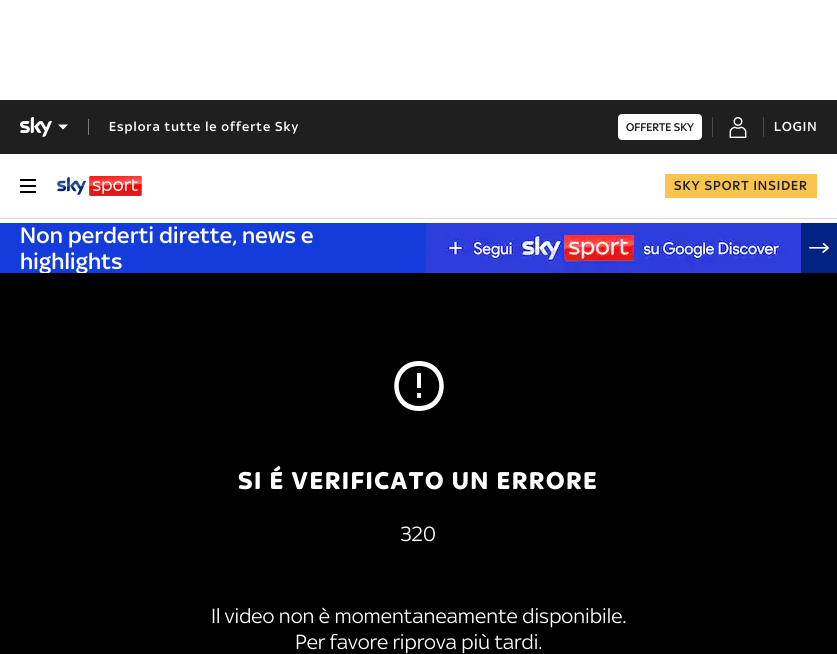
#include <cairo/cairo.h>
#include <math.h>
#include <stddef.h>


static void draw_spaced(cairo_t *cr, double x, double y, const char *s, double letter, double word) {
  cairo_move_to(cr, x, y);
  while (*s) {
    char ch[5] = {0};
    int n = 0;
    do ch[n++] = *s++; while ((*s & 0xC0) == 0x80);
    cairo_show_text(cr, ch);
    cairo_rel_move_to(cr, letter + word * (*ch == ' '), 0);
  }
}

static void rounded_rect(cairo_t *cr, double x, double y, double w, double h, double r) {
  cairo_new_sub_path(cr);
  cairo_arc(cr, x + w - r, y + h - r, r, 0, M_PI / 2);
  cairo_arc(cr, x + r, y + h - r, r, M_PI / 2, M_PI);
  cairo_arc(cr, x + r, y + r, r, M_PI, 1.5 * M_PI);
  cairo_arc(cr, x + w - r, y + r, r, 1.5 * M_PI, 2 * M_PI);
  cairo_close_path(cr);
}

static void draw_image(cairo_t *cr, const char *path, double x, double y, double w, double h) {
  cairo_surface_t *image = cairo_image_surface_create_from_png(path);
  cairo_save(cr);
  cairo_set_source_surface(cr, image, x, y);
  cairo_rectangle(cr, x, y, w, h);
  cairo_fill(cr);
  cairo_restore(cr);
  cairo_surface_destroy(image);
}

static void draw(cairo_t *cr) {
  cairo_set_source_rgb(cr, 1, 1, 1);
  cairo_paint(cr);
  cairo_set_source_rgb(cr, 31 / 255.0, 31 / 255.0, 31 / 255.0);
  cairo_rectangle(cr, 0, 100, 837, 54);
  cairo_fill(cr);
  draw_image(cr, "images/1.png", 20, 117, 32, 20);
  cairo_set_source_rgb(cr, 1, 1, 1);
  cairo_set_fill_rule(cr, CAIRO_FILL_RULE_EVEN_ODD);
  cairo_new_path(cr);
  cairo_move_to(cr, 58, 124.5);
  cairo_line_to(cr, 68, 124.5);
  cairo_line_to(cr, 63, 129.5);
  cairo_close_path(cr);
  cairo_fill(cr);
  cairo_set_source_rgb(cr, 121 / 255.0, 121 / 255.0, 121 / 255.0);
  cairo_rectangle(cr, 88, 119, 1, 16);
  cairo_fill(cr);
  cairo_set_source_rgb(cr, 1, 1, 1);
  rounded_rect(cr, 618, 114, 84, 26, 4);
  cairo_fill(cr);
  cairo_set_source_rgb(cr, 76 / 255.0, 76 / 255.0, 76 / 255.0);
  cairo_rectangle(cr, 712, 117, 1, 20);
  cairo_fill(cr);
  draw_image(cr, "images/2.png", 729, 117, 18, 21);
  cairo_rectangle(cr, 763, 117, 1, 20);
  cairo_fill(cr);
  cairo_set_source_rgb(cr, 214 / 255.0, 214 / 255.0, 214 / 255.0);
  cairo_rectangle(cr, 0, 218, 837, 1);
  cairo_fill(cr);
  draw_image(cr, "images/3.png", 20, 179, 16, 14);
  draw_image(cr, "images/4.png", 57, 176, 85, 20);
  cairo_set_source_rgb(cr, 248 / 255.0, 196 / 255.0, 78 / 255.0);
  cairo_rectangle(cr, 665, 174, 152, 24);
  cairo_fill(cr);
  cairo_set_source_rgb(cr, 20 / 255.0, 60 / 255.0, 219 / 255.0);
  cairo_rectangle(cr, 0, 223, 426, 50);
  cairo_fill(cr);
  draw_image(cr, "images/5.png", 426, 223, 375, 50);
  cairo_set_source_rgb(cr, 0, 34 / 255.0, 128 / 255.0);
  cairo_rectangle(cr, 801, 223, 36, 50);
  cairo_fill(cr);
  draw_image(cr, "images/6.png", 809, 243, 20, 10);
  cairo_select_font_face(cr, "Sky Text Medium", CAIRO_FONT_SLANT_NORMAL, CAIRO_FONT_WEIGHT_NORMAL);
  cairo_set_font_size(cr, 14);
  cairo_set_source_rgb(cr, 1, 1, 1);
  draw_spaced(cr, 109, 131, "Esplora tutte le offerte Sky", 1, 0);
  cairo_set_font_size(cr, 12);
  cairo_set_source_rgb(cr, 31 / 255.0, 31 / 255.0, 31 / 255.0);
  cairo_move_to(cr, 626, 131);
  cairo_show_text(cr, "OFFERTE SKY");
  cairo_set_font_size(cr, 14);
  cairo_set_source_rgb(cr, 1, 1, 1);
  draw_spaced(cr, 774, 131, "LOGIN", 1, 0);
  cairo_set_source_rgb(cr, 31 / 255.0, 31 / 255.0, 31 / 255.0);
  draw_spaced(cr, 674, 190, "SKY SPORT INSIDER", 1, 0);
  cairo_set_font_size(cr, 24);
  cairo_set_source_rgb(cr, 1, 1, 1);
  draw_spaced(cr, 20, 243, "Non perderti dirette, news e", 0.2, 0);
  draw_spaced(cr, 20, 269, "highlights", 0.2, 0);
  cairo_set_source_rgb(cr, 0, 0, 0);
  cairo_rectangle(cr, 0, 273, 837, 381);
  cairo_fill(cr);
  cairo_set_source_rgb(cr, 1, 1, 1);
  cairo_set_fill_rule(cr, CAIRO_FILL_RULE_WINDING);
  cairo_new_path(cr);
  cairo_move_to(cr, 417, 393);
  cairo_line_to(cr, 421, 393);
  cairo_line_to(cr, 421, 398);
  cairo_line_to(cr, 417, 398);
  cairo_close_path(cr);
  cairo_move_to(cr, 417, 373);
  cairo_line_to(cr, 421, 373);
  cairo_line_to(cr, 421, 388);
  cairo_line_to(cr, 417, 388);
  cairo_close_path(cr);
  cairo_move_to(cr, 419, 361);
  cairo_curve_to(cr, 386, 361, 386, 411, 419, 411);
  cairo_curve_to(cr, 452, 411, 452, 361, 419, 361);
  cairo_close_path(cr);
  cairo_move_to(cr, 419, 406);
  cairo_curve_to(cr, 392, 406, 392, 366, 419, 366);
  cairo_curve_to(cr, 446, 366, 446, 406, 419, 406);
  cairo_close_path(cr);
  cairo_fill(cr);
  cairo_select_font_face(cr, "Sky Text", CAIRO_FONT_SLANT_NORMAL, CAIRO_FONT_WEIGHT_BOLD);
  cairo_set_font_size(cr, 26);
  draw_spaced(cr, 238, 489, "SI É VERIFICATO UN ERRORE", 1.5, 0);
  cairo_select_font_face(cr, "Sky Text", CAIRO_FONT_SLANT_NORMAL, CAIRO_FONT_WEIGHT_NORMAL);
  cairo_set_font_size(cr, 22);
  cairo_move_to(cr, 400, 541);
  cairo_show_text(cr, "320");
  cairo_move_to(cr, 211, 623);
  cairo_show_text(cr, "Il video non è momentaneamente disponibile.");
  cairo_move_to(cr, 295, 649);
  cairo_show_text(cr, "Per favore riprova più tardi.");
}

int main(void) {
  cairo_surface_t *surface = cairo_image_surface_create(CAIRO_FORMAT_RGB24, 837, 654);
  cairo_t *cr = cairo_create(surface);
  cairo_font_options_t *options = cairo_font_options_create();
  cairo_font_options_set_hint_metrics(options, CAIRO_HINT_METRICS_OFF);
  cairo_font_options_set_hint_style(options, CAIRO_HINT_STYLE_NONE);
  cairo_set_font_options(cr, options);
  cairo_set_miter_limit(cr, 4);
  draw(cr);
  cairo_surface_write_to_png(surface, "out.png");
  cairo_font_options_destroy(options);
  cairo_destroy(cr);
  cairo_surface_destroy(surface);
  return 0;
}
